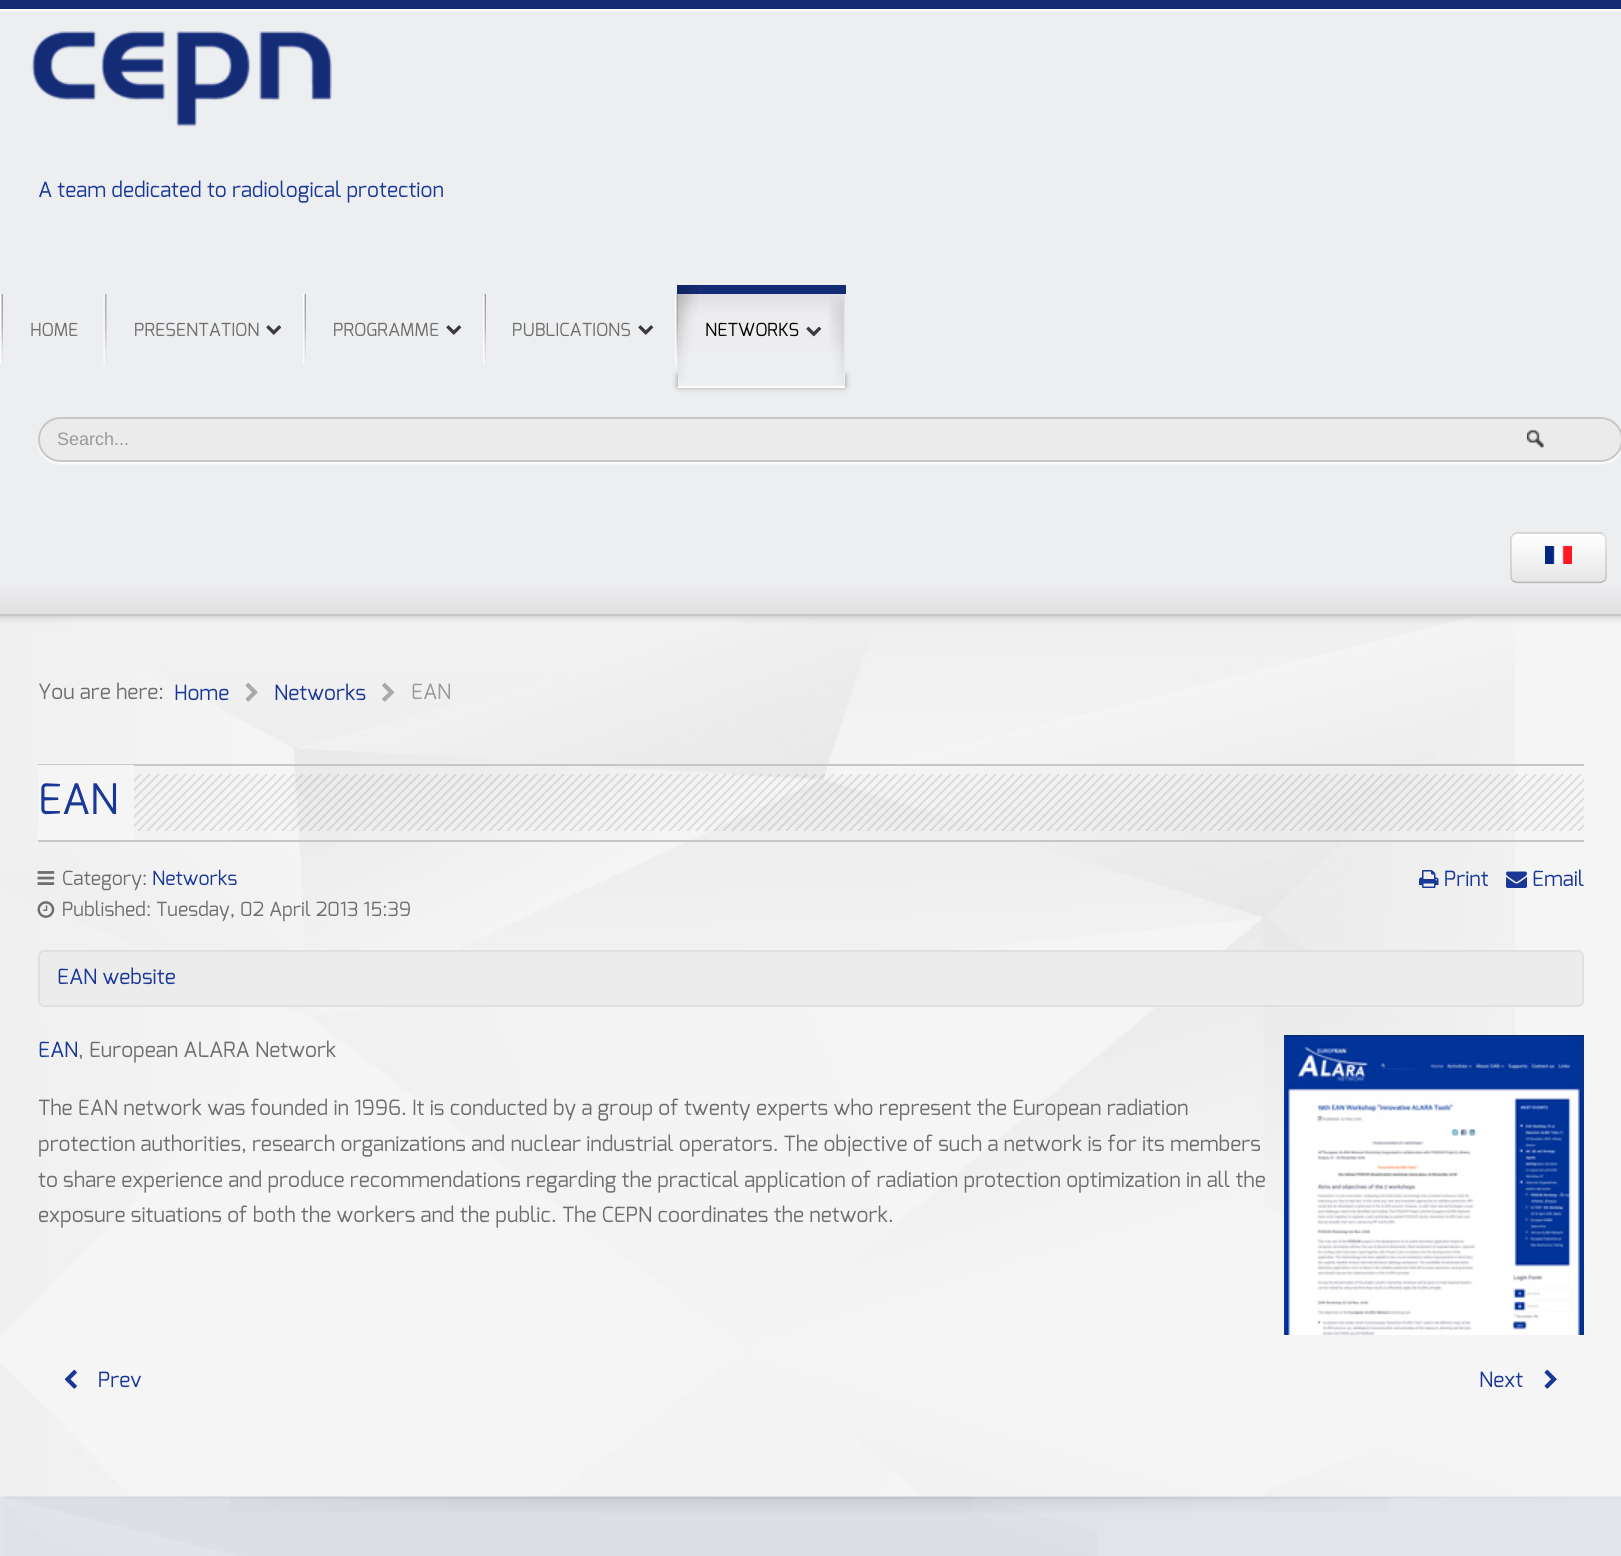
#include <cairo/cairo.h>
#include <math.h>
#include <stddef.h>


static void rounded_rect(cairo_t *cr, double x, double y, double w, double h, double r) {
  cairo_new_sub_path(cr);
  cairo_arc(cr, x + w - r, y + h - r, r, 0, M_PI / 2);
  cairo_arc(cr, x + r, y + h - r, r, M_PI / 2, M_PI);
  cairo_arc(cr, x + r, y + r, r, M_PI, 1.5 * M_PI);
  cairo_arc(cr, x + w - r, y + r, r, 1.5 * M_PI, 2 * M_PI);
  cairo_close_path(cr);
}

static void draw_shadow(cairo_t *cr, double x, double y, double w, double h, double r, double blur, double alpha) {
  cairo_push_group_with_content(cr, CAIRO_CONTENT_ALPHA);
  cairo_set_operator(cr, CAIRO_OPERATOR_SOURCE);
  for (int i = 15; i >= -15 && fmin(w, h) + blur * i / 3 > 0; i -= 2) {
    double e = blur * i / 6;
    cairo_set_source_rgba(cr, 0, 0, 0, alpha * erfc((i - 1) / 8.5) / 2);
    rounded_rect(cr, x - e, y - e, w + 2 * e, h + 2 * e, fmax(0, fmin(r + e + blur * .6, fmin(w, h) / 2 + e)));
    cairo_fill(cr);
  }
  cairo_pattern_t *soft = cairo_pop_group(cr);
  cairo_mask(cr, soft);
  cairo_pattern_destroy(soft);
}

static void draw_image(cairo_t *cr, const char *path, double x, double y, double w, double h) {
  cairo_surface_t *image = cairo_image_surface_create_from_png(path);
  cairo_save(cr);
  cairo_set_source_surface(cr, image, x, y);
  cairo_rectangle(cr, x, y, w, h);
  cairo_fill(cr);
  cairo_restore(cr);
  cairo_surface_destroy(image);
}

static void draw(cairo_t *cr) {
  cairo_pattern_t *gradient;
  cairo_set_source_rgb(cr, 245 / 255.0, 245 / 255.0, 245 / 255.0);
  cairo_paint(cr);
  draw_image(cr, "images/11.png", 0, 616, 1515, 880);
  cairo_set_source_rgb(cr, 0, 0, 0);
  draw_shadow(cr, 0, 0, 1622, 615, 0, 4.5, 0.3);
  gradient = cairo_pattern_create_linear(811, 0, 811, 614);
  cairo_pattern_add_color_stop_rgba(gradient, 0, 237 / 255.0, 238 / 255.0, 240 / 255.0, 1);
  cairo_pattern_add_color_stop_rgba(gradient, 0.95, 237 / 255.0, 238 / 255.0, 240 / 255.0, 1);
  cairo_pattern_add_color_stop_rgba(gradient, 1, 225 / 255.0, 225 / 255.0, 225 / 255.0, 1);
  cairo_set_source(cr, gradient);
  cairo_pattern_destroy(gradient);
  cairo_rectangle(cr, 0, 11, 1621, 603);
  cairo_fill(cr);
  cairo_set_source_rgb(cr, 1, 1, 1);
  cairo_rectangle(cr, 0, 9, 1621, 2);
  cairo_fill(cr);
  cairo_set_source_rgb(cr, 20 / 255.0, 43 / 255.0, 118 / 255.0);
  cairo_rectangle(cr, 0, 0, 1621, 9);
  cairo_fill(cr);
  cairo_set_source_rgb(cr, 199 / 255.0, 199 / 255.0, 199 / 255.0);
  cairo_rectangle(cr, 0, 614, 1621, 2);
  cairo_fill(cr);
  draw_image(cr, "images/1.png", 31, 31, 301, 96);
  draw_image(cr, "images/2.png", 0, 294, 3, 71);
  draw_image(cr, "images/3.png", 103, 294, 4, 71);
  draw_image(cr, "images/4.png", 266, 325, 16, 10);
  draw_image(cr, "images/5.png", 303, 294, 3, 71);
  draw_image(cr, "images/4.png", 446, 325, 16, 10);
  draw_image(cr, "images/5.png", 483, 294, 3, 71);
  draw_image(cr, "images/4.png", 638, 325, 16, 10);
  draw_image(cr, "images/2.png", 675, 294, 3, 71);
  cairo_set_source_rgb(cr, 0, 0, 0);
  draw_shadow(cr, 678, 375, 167, 12, 0, 3, 0.4);
  gradient = cairo_pattern_create_linear(761, 285, 761, 386);
  cairo_pattern_add_color_stop_rgba(gradient, 0, 216 / 255.0, 216 / 255.0, 218 / 255.0, 1);
  cairo_pattern_add_color_stop_rgba(gradient, 0.3, 237 / 255.0, 237 / 255.0, 239 / 255.0, 1);
  cairo_pattern_add_color_stop_rgba(gradient, 1, 237 / 255.0, 238 / 255.0, 240 / 255.0, 1);
  cairo_set_source(cr, gradient);
  cairo_pattern_destroy(gradient);
  cairo_rectangle(cr, 678, 294, 167, 92);
  cairo_fill(cr);
  cairo_set_source_rgb(cr, 1, 1, 1);
  cairo_rectangle(cr, 678, 386, 167, 2);
  cairo_fill(cr);
  cairo_set_source_rgb(cr, 20 / 255.0, 43 / 255.0, 118 / 255.0);
  cairo_rectangle(cr, 677, 285, 169, 9);
  cairo_fill(cr);
  draw_image(cr, "images/6.png", 678, 285, 20, 95);
  draw_image(cr, "images/7.png", 829, 296, 16, 89);
  draw_image(cr, "images/8.png", 806, 326, 16, 11);
  cairo_set_source_rgb(cr, 1, 1, 1);
  draw_shadow(cr, 38, 419, 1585, 45, 22.5, 1, 1);
  cairo_set_source_rgb(cr, 235 / 255.0, 235 / 255.0, 235 / 255.0);
  rounded_rect(cr, 38, 417, 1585, 45, 22.5);
  cairo_fill(cr);
  draw_image(cr, "images/9.png", 1527, 429, 17, 20);
  rounded_rect(cr, 39, 418, 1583, 43, 21.5);
  cairo_set_source_rgb(cr, 199 / 255.0, 199 / 255.0, 199 / 255.0);
  cairo_stroke(cr);
  cairo_set_source_rgb(cr, 245 / 255.0, 245 / 255.0, 245 / 255.0);
  rounded_rect(cr, 1511, 533, 96, 51, 6);
  cairo_fill(cr);
  cairo_save(cr);
  rounded_rect(cr, 1511, 533, 96, 51, 6);
  cairo_clip(cr);
  gradient = cairo_pattern_create_linear(1559, 534, 1559, 582);
  cairo_pattern_add_color_stop_rgba(gradient, 0, 1, 1, 1, 1);
  cairo_pattern_add_color_stop_rgba(gradient, 1, 230 / 255.0, 230 / 255.0, 230 / 255.0, 1);
  cairo_set_source(cr, gradient);
  cairo_pattern_destroy(gradient);
  cairo_rectangle(cr, 1511, 534, 96, 48);
  cairo_fill(cr);
  cairo_restore(cr);
  cairo_new_path(cr);
  cairo_move_to(cr, 1604, 581);
  cairo_line_to(cr, 1601, 582.5);
  cairo_line_to(cr, 1516, 582.5);
  cairo_line_to(cr, 1513, 581);
  cairo_set_source_rgba(cr, 0, 0, 0, 0.25);
  cairo_set_line_width(cr, 1.5);
  cairo_stroke(cr);
  cairo_new_path(cr);
  cairo_move_to(cr, 1513, 581);
  cairo_curve_to(cr, 1512, 580, 1511, 579, 1511, 577.5);
  cairo_line_to(cr, 1511, 538.5);
  cairo_curve_to(cr, 1511, 537, 1512, 536, 1513, 535);
  cairo_curve_to(cr, 1514, 534, 1515, 533, 1516.5, 533);
  cairo_line_to(cr, 1600.5, 533);
  cairo_curve_to(cr, 1602, 533, 1603, 534, 1604, 535);
  cairo_curve_to(cr, 1605, 536, 1606, 537, 1606, 538.5);
  cairo_line_to(cr, 1606, 577.5);
  cairo_curve_to(cr, 1606, 579, 1605, 580, 1604, 581);
  cairo_set_source_rgba(cr, 0, 0, 0, 0.15);
  cairo_stroke(cr);
  draw_image(cr, "images/10.png", 1545, 546, 27, 18);
  draw_image(cr, "images/12.png", 245, 682, 13, 20);
  draw_image(cr, "images/13.png", 382, 682, 13, 20);
  cairo_set_source_rgb(cr, 199 / 255.0, 199 / 255.0, 199 / 255.0);
  cairo_rectangle(cr, 38, 764, 1546, 2);
  cairo_fill(cr);
  cairo_rectangle(cr, 38, 840, 1546, 2);
  cairo_fill(cr);
  draw_image(cr, "images/14.png", 37, 774, 1547, 57);
  cairo_set_source_rgb(cr, 245 / 255.0, 245 / 255.0, 245 / 255.0);
  cairo_rectangle(cr, 38, 765, 96, 75);
  cairo_fill(cr);
  draw_image(cr, "images/15.png", 37, 871, 18, 14);
  draw_image(cr, "images/16.png", 37, 901, 18, 17);
  draw_image(cr, "images/17.png", 1419, 870, 20, 18);
  draw_image(cr, "images/18.png", 1506, 871, 21, 17);
  cairo_set_source_rgb(cr, 236 / 255.0, 236 / 255.0, 236 / 255.0);
  rounded_rect(cr, 39, 951, 1544, 55, 5);
  cairo_fill_preserve(cr);
  cairo_set_source_rgb(cr, 224 / 255.0, 224 / 255.0, 224 / 255.0);
  cairo_set_line_width(cr, 2);
  cairo_stroke(cr);
  draw_image(cr, "images/19.png", 1284, 1035, 300, 300);
  draw_image(cr, "images/20.png", 64, 1369, 13, 20);
  draw_image(cr, "images/21.png", 1544, 1369, 13, 20);
  cairo_set_source_rgb(cr, 225 / 255.0, 228 / 255.0, 233 / 255.0);
  cairo_rectangle(cr, 0, 1496, 1621, 60);
  cairo_fill(cr);
  draw_image(cr, "images/22.png", 0, 1496, 1621, 17);
  draw_image(cr, "images/23.png", 3, 1496, 1094, 60);
  cairo_select_font_face(cr, "Exo", CAIRO_FONT_SLANT_NORMAL, CAIRO_FONT_WEIGHT_NORMAL);
  cairo_set_font_size(cr, 21);
  cairo_set_source_rgb(cr, 25 / 255.0, 55 / 255.0, 150 / 255.0);
  cairo_move_to(cr, 38, 197);
  cairo_show_text(cr, "A team dedicated to radiological protection");
  cairo_set_font_size(cr, 18);
  cairo_set_source_rgb(cr, 110 / 255.0, 110 / 255.0, 110 / 255.0);
  cairo_move_to(cr, 30, 336);
  cairo_show_text(cr, "HOME");
  cairo_move_to(cr, 134, 336);
  cairo_show_text(cr, "PRESENTATION");
  cairo_move_to(cr, 333, 336);
  cairo_show_text(cr, "PROGRAMME");
  cairo_move_to(cr, 512, 336);
  cairo_show_text(cr, "PUBLICATIONS");
  cairo_set_source_rgb(cr, 0, 0, 0);
  cairo_move_to(cr, 705, 336);
  cairo_show_text(cr, "NETWORKS");
  cairo_select_font_face(cr, "Liberation Sans", CAIRO_FONT_SLANT_NORMAL, CAIRO_FONT_WEIGHT_NORMAL);
  cairo_set_source_rgb(cr, 153 / 255.0, 153 / 255.0, 153 / 255.0);
  cairo_move_to(cr, 57, 445);
  cairo_show_text(cr, "Search...");
  cairo_select_font_face(cr, "Exo", CAIRO_FONT_SLANT_NORMAL, CAIRO_FONT_WEIGHT_NORMAL);
  cairo_set_font_size(cr, 21);
  cairo_set_source_rgb(cr, 110 / 255.0, 110 / 255.0, 110 / 255.0);
  cairo_move_to(cr, 38, 699);
  cairo_show_text(cr, "You are here:");
  cairo_set_source_rgb(cr, 25 / 255.0, 55 / 255.0, 150 / 255.0);
  cairo_move_to(cr, 174, 700);
  cairo_show_text(cr, "Home");
  cairo_move_to(cr, 274, 700);
  cairo_show_text(cr, "Networks");
  cairo_set_source_rgb(cr, 153 / 255.0, 153 / 255.0, 153 / 255.0);
  cairo_move_to(cr, 411, 699);
  cairo_show_text(cr, "EAN");
  cairo_set_font_size(cr, 42);
  cairo_set_source_rgb(cr, 25 / 255.0, 55 / 255.0, 150 / 255.0);
  cairo_move_to(cr, 38, 814);
  cairo_show_text(cr, "EAN");
  cairo_set_font_size(cr, 19.5);
  cairo_set_source_rgb(cr, 110 / 255.0, 110 / 255.0, 110 / 255.0);
  cairo_move_to(cr, 62, 885);
  cairo_show_text(cr, "Category:");
  cairo_set_source_rgb(cr, 25 / 255.0, 55 / 255.0, 150 / 255.0);
  cairo_move_to(cr, 152, 885);
  cairo_show_text(cr, "Networks");
  cairo_set_source_rgb(cr, 110 / 255.0, 110 / 255.0, 110 / 255.0);
  cairo_move_to(cr, 62, 916);
  cairo_show_text(cr, "Published: Tuesday, 02 April 2013 15:39");
  cairo_set_font_size(cr, 21);
  cairo_set_source_rgb(cr, 25 / 255.0, 55 / 255.0, 150 / 255.0);
  cairo_move_to(cr, 1444, 886);
  cairo_show_text(cr, "Print");
  cairo_move_to(cr, 1532, 886);
  cairo_show_text(cr, "Email");
  cairo_move_to(cr, 57, 984);
  cairo_show_text(cr, "EAN website");
  cairo_move_to(cr, 38, 1057);
  cairo_show_text(cr, "EAN");
  cairo_set_source_rgb(cr, 110 / 255.0, 110 / 255.0, 110 / 255.0);
  cairo_move_to(cr, 78, 1057);
  cairo_show_text(cr, ", European ALARA Network");
  cairo_move_to(cr, 38, 1115);
  cairo_show_text(cr, "The EAN network was founded in 1996. It is conducted by a group of twenty experts who represent the European radiation");
  cairo_move_to(cr, 38, 1151);
  cairo_show_text(cr, "protection authorities, research organizations and nuclear industrial operators. The objective of such a network is for its members");
  cairo_move_to(cr, 38, 1187);
  cairo_show_text(cr, "to share experience and produce recommendations regarding the practical application of radiation protection optimization in all the");
  cairo_move_to(cr, 38, 1222);
  cairo_show_text(cr, "exposure situations of both the workers and the public. The CEPN coordinates the network.");
  cairo_set_source_rgb(cr, 25 / 255.0, 55 / 255.0, 150 / 255.0);
  cairo_move_to(cr, 98, 1387);
  cairo_show_text(cr, "Prev");
  cairo_move_to(cr, 1479, 1387);
  cairo_show_text(cr, "Next");
}

int main(void) {
  cairo_surface_t *surface = cairo_image_surface_create(CAIRO_FORMAT_RGB24, 1621, 1556);
  cairo_t *cr = cairo_create(surface);
  cairo_font_options_t *options = cairo_font_options_create();
  cairo_font_options_set_hint_metrics(options, CAIRO_HINT_METRICS_OFF);
  cairo_font_options_set_hint_style(options, CAIRO_HINT_STYLE_NONE);
  cairo_set_font_options(cr, options);
  cairo_set_miter_limit(cr, 4);
  draw(cr);
  cairo_surface_write_to_png(surface, "out.png");
  cairo_font_options_destroy(options);
  cairo_destroy(cr);
  cairo_surface_destroy(surface);
  return 0;
}
